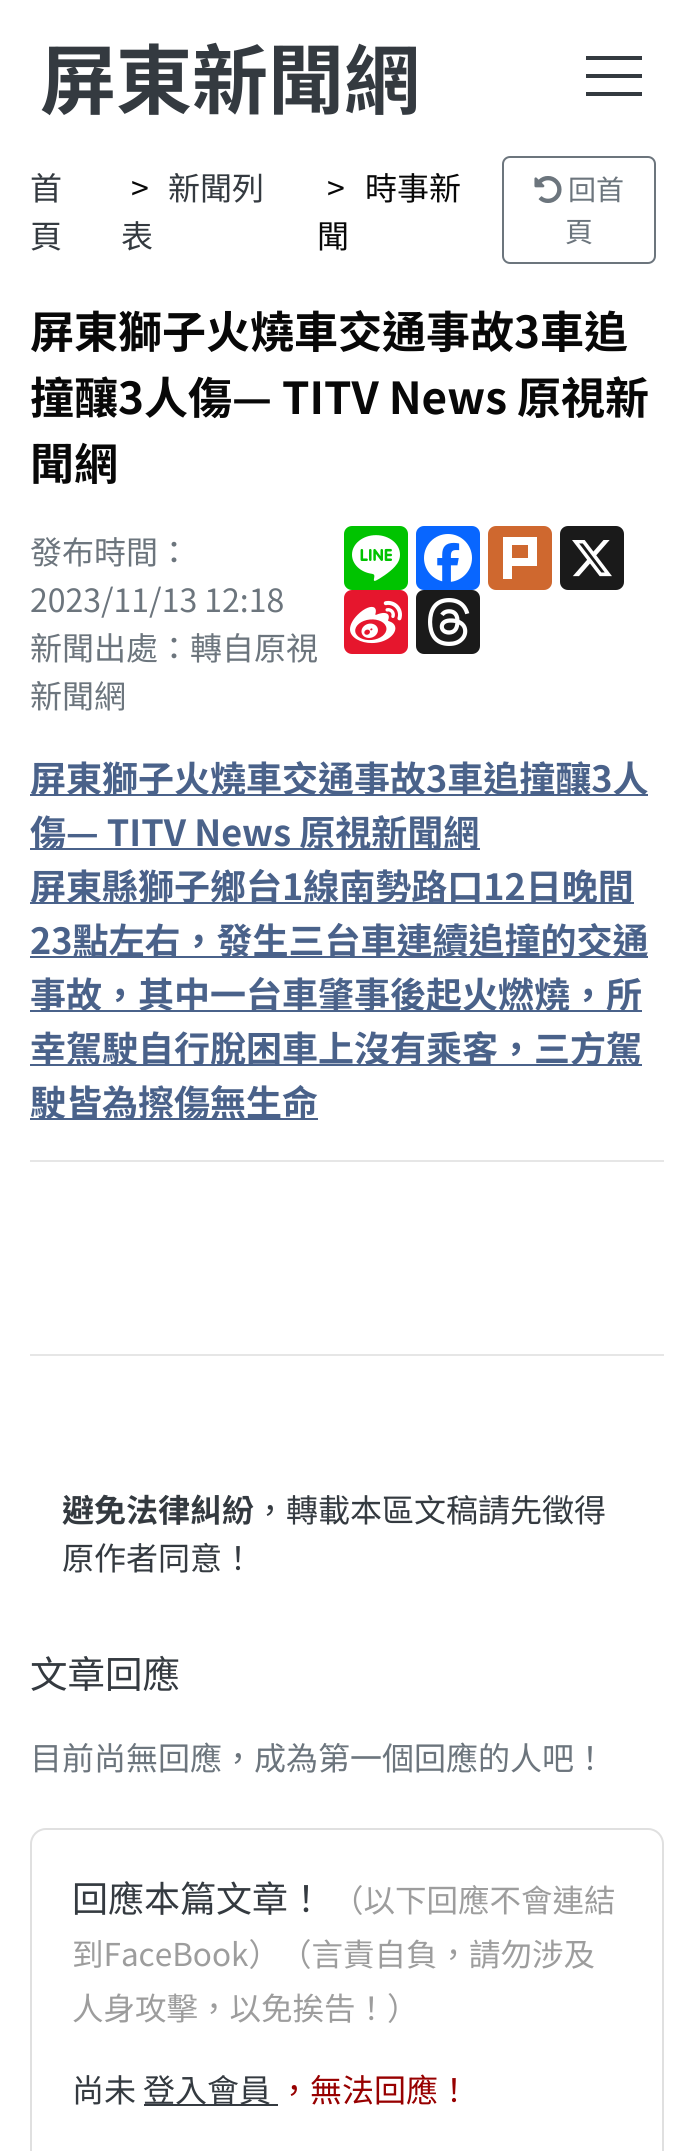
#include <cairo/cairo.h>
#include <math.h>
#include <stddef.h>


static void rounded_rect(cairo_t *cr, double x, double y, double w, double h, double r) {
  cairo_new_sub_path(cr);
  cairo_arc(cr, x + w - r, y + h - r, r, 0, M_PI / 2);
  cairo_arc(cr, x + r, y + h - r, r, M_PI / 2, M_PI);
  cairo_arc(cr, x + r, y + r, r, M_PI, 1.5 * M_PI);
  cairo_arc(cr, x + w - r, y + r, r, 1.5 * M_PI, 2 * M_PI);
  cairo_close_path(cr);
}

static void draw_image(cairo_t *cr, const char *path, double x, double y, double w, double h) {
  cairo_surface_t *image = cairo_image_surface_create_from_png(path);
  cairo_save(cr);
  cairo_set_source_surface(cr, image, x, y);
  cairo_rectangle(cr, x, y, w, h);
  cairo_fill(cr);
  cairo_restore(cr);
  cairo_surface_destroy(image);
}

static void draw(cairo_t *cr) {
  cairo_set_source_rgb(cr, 1, 1, 1);
  cairo_paint(cr);
  cairo_set_source_rgb(cr, 52 / 255.0, 58 / 255.0, 64 / 255.0);
  cairo_rectangle(cr, 586, 74, 56, 4);
  cairo_fill(cr);
  cairo_rectangle(cr, 586, 56, 56, 4);
  cairo_fill(cr);
  cairo_rectangle(cr, 586, 92, 56, 4);
  cairo_fill(cr);
  rounded_rect(cr, 503, 157, 152, 106, 7);
  cairo_set_source_rgb(cr, 108 / 255.0, 117 / 255.0, 125 / 255.0);
  cairo_stroke(cr);
  draw_image(cr, "images/1.png", 534, 176, 28, 27);
  cairo_set_source_rgb(cr, 0, 195 / 255.0, 0);
  rounded_rect(cr, 344, 526, 64, 64, 8);
  cairo_fill(cr);
  draw_image(cr, "images/2.png", 352, 535, 48, 46);
  cairo_set_source_rgb(cr, 8 / 255.0, 102 / 255.0, 1);
  rounded_rect(cr, 416, 526, 64, 64, 8);
  cairo_fill(cr);
  draw_image(cr, "images/3.png", 424, 534, 48, 48);
  cairo_set_source_rgb(cr, 207 / 255.0, 104 / 255.0, 47 / 255.0);
  rounded_rect(cr, 488, 526, 64, 64, 8);
  cairo_fill(cr);
  cairo_set_source_rgb(cr, 1, 1, 1);
  cairo_new_path(cr);
  cairo_move_to(cr, 528, 558);
  cairo_line_to(cr, 512, 558);
  cairo_line_to(cr, 512, 545);
  cairo_line_to(cr, 528, 545);
  cairo_close_path(cr);
  cairo_move_to(cr, 537, 566);
  cairo_line_to(cr, 537, 537);
  cairo_line_to(cr, 503, 537);
  cairo_line_to(cr, 503, 579);
  cairo_line_to(cr, 512, 579);
  cairo_line_to(cr, 512, 566);
  cairo_close_path(cr);
  cairo_fill(cr);
  cairo_set_source_rgb(cr, 26 / 255.0, 26 / 255.0, 26 / 255.0);
  rounded_rect(cr, 560, 526, 64, 64, 8);
  cairo_fill(cr);
  draw_image(cr, "images/4.png", 572, 540, 40, 37);
  cairo_set_source_rgb(cr, 230 / 255.0, 22 / 255.0, 45 / 255.0);
  rounded_rect(cr, 344, 590, 64, 64, 8);
  cairo_fill(cr);
  draw_image(cr, "images/5.png", 350, 600, 52, 44);
  cairo_set_source_rgb(cr, 26 / 255.0, 26 / 255.0, 26 / 255.0);
  rounded_rect(cr, 416, 590, 64, 64, 8);
  cairo_fill(cr);
  draw_image(cr, "images/6.png", 428, 598, 42, 48);
  cairo_set_source_rgb(cr, 74 / 255.0, 98 / 255.0, 138 / 255.0);
  cairo_rectangle(cr, 30, 794, 618, 2);
  cairo_fill(cr);
  cairo_rectangle(cr, 30, 848, 450, 2);
  cairo_fill(cr);
  cairo_rectangle(cr, 30, 902, 604, 2);
  cairo_fill(cr);
  cairo_rectangle(cr, 30, 956, 618, 2);
  cairo_fill(cr);
  cairo_rectangle(cr, 30, 1010, 612, 2);
  cairo_fill(cr);
  cairo_rectangle(cr, 30, 1064, 612, 2);
  cairo_fill(cr);
  cairo_rectangle(cr, 30, 1118, 288, 2);
  cairo_fill(cr);
  cairo_set_source_rgb(cr, 230 / 255.0, 230 / 255.0, 230 / 255.0);
  cairo_rectangle(cr, 30, 1160, 634, 2);
  cairo_fill(cr);
  cairo_rectangle(cr, 30, 1354, 634, 2);
  cairo_fill(cr);
  rounded_rect(cr, 31, 1829, 632, 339, 15);
  cairo_set_source_rgb(cr, 224 / 255.0, 224 / 255.0, 224 / 255.0);
  cairo_stroke(cr);
  cairo_set_source_rgb(cr, 52 / 255.0, 58 / 255.0, 64 / 255.0);
  cairo_rectangle(cr, 144, 2104, 134, 2);
  cairo_fill(cr);
  cairo_select_font_face(cr, "Noto Sans TC", CAIRO_FONT_SLANT_NORMAL, CAIRO_FONT_WEIGHT_BOLD);
  cairo_set_font_size(cr, 76);
  cairo_move_to(cr, 40, 108);
  cairo_show_text(cr, "屏東新聞網");
  cairo_select_font_face(cr, "Noto Sans TC", CAIRO_FONT_SLANT_NORMAL, CAIRO_FONT_WEIGHT_NORMAL);
  cairo_set_font_size(cr, 32);
  cairo_move_to(cr, 30, 200);
  cairo_show_text(cr, "首");
  cairo_move_to(cr, 30, 248);
  cairo_show_text(cr, "頁");
  cairo_set_source_rgb(cr, 8 / 255.0, 8 / 255.0, 8 / 255.0);
  cairo_move_to(cr, 131, 200);
  cairo_show_text(cr, ">");
  cairo_set_source_rgb(cr, 52 / 255.0, 58 / 255.0, 64 / 255.0);
  cairo_move_to(cr, 168, 200);
  cairo_show_text(cr, "新聞列");
  cairo_move_to(cr, 121, 248);
  cairo_show_text(cr, "表");
  cairo_set_source_rgb(cr, 8 / 255.0, 8 / 255.0, 8 / 255.0);
  cairo_move_to(cr, 327, 200);
  cairo_show_text(cr, ">");
  cairo_move_to(cr, 365, 200);
  cairo_show_text(cr, "時事新");
  cairo_move_to(cr, 317, 248);
  cairo_show_text(cr, "聞");
  cairo_set_font_size(cr, 28);
  cairo_set_source_rgb(cr, 108 / 255.0, 117 / 255.0, 125 / 255.0);
  cairo_move_to(cr, 568, 200);
  cairo_show_text(cr, "回首");
  cairo_move_to(cr, 565, 242);
  cairo_show_text(cr, "頁");
  cairo_select_font_face(cr, "Noto Sans TC", CAIRO_FONT_SLANT_NORMAL, CAIRO_FONT_WEIGHT_BOLD);
  cairo_set_font_size(cr, 44);
  cairo_set_source_rgb(cr, 8 / 255.0, 8 / 255.0, 8 / 255.0);
  cairo_move_to(cr, 30, 348);
  cairo_show_text(cr, "屏東獅子火燒車交通事故3車追");
  cairo_move_to(cr, 30, 414);
  cairo_show_text(cr, "撞釀3人傷— TITV News 原視新");
  cairo_move_to(cr, 30, 480);
  cairo_show_text(cr, "聞網");
  cairo_select_font_face(cr, "Noto Sans TC", CAIRO_FONT_SLANT_NORMAL, CAIRO_FONT_WEIGHT_NORMAL);
  cairo_set_font_size(cr, 32);
  cairo_set_source_rgb(cr, 108 / 255.0, 117 / 255.0, 125 / 255.0);
  cairo_move_to(cr, 30, 564);
  cairo_show_text(cr, "發布時間：");
  cairo_move_to(cr, 30, 612);
  cairo_show_text(cr, "2023/11/13 12:18");
  cairo_move_to(cr, 30, 660);
  cairo_show_text(cr, "新聞出處：轉自原視");
  cairo_move_to(cr, 30, 708);
  cairo_show_text(cr, "新聞網");
  cairo_select_font_face(cr, "Noto Sans TC", CAIRO_FONT_SLANT_NORMAL, CAIRO_FONT_WEIGHT_BOLD);
  cairo_set_font_size(cr, 36);
  cairo_set_source_rgb(cr, 74 / 255.0, 98 / 255.0, 138 / 255.0);
  cairo_move_to(cr, 30, 792);
  cairo_show_text(cr, "屏東獅子火燒車交通事故3車追撞釀3人");
  cairo_move_to(cr, 30, 846);
  cairo_show_text(cr, "傷— TITV News 原視新聞網");
  cairo_move_to(cr, 30, 900);
  cairo_show_text(cr, "屏東縣獅子鄉台1線南勢路口12日晚間");
  cairo_move_to(cr, 30, 954);
  cairo_show_text(cr, "23點左右，發生三台車連續追撞的交通");
  cairo_move_to(cr, 30, 1008);
  cairo_show_text(cr, "事故，其中一台車肇事後起火燃燒，所");
  cairo_move_to(cr, 30, 1062);
  cairo_show_text(cr, "幸駕駛自行脫困車上沒有乘客，三方駕");
  cairo_move_to(cr, 30, 1116);
  cairo_show_text(cr, "駛皆為擦傷無生命");
  cairo_set_font_size(cr, 32);
  cairo_set_source_rgb(cr, 52 / 255.0, 58 / 255.0, 64 / 255.0);
  cairo_move_to(cr, 62, 1522);
  cairo_show_text(cr, "避免法律糾紛");
  cairo_select_font_face(cr, "Noto Sans TC", CAIRO_FONT_SLANT_NORMAL, CAIRO_FONT_WEIGHT_NORMAL);
  cairo_move_to(cr, 254, 1522);
  cairo_show_text(cr, "，轉載本區文稿請先徵得");
  cairo_move_to(cr, 62, 1570);
  cairo_show_text(cr, "原作者同意！");
  cairo_set_font_size(cr, 37.5);
  cairo_move_to(cr, 30, 1688);
  cairo_show_text(cr, "文章回應");
  cairo_set_font_size(cr, 32);
  cairo_set_source_rgb(cr, 108 / 255.0, 117 / 255.0, 125 / 255.0);
  cairo_move_to(cr, 30, 1770);
  cairo_show_text(cr, "目前尚無回應，成為第一個回應的人吧！");
  cairo_set_font_size(cr, 36);
  cairo_set_source_rgb(cr, 52 / 255.0, 58 / 255.0, 64 / 255.0);
  cairo_move_to(cr, 72, 1912);
  cairo_show_text(cr, "回應本篇文章！");
  cairo_set_font_size(cr, 31.5);
  cairo_set_source_rgb(cr, 157 / 255.0, 157 / 255.0, 157 / 255.0);
  cairo_move_to(cr, 332, 1912);
  cairo_show_text(cr, "（以下回應不會連結");
  cairo_move_to(cr, 72, 1966);
  cairo_show_text(cr, "到FaceBook）（言責自負，請勿涉及");
  cairo_move_to(cr, 72, 2020);
  cairo_show_text(cr, "人身攻擊，以免挨告！）");
  cairo_set_font_size(cr, 32);
  cairo_set_source_rgb(cr, 52 / 255.0, 58 / 255.0, 64 / 255.0);
  cairo_move_to(cr, 72, 2102);
  cairo_show_text(cr, "尚未");
  cairo_move_to(cr, 143, 2102);
  cairo_show_text(cr, "登入會員");
  cairo_set_source_rgb(cr, 151 / 255.0, 0, 0);
  cairo_move_to(cr, 278, 2102);
  cairo_show_text(cr, "，無法回應！");
}

int main(void) {
  cairo_surface_t *surface = cairo_image_surface_create(CAIRO_FORMAT_RGB24, 694, 2151);
  cairo_t *cr = cairo_create(surface);
  cairo_font_options_t *options = cairo_font_options_create();
  cairo_font_options_set_hint_metrics(options, CAIRO_HINT_METRICS_OFF);
  cairo_font_options_set_hint_style(options, CAIRO_HINT_STYLE_NONE);
  cairo_set_font_options(cr, options);
  cairo_set_miter_limit(cr, 4);
  draw(cr);
  cairo_surface_write_to_png(surface, "out.png");
  cairo_font_options_destroy(options);
  cairo_destroy(cr);
  cairo_surface_destroy(surface);
  return 0;
}
